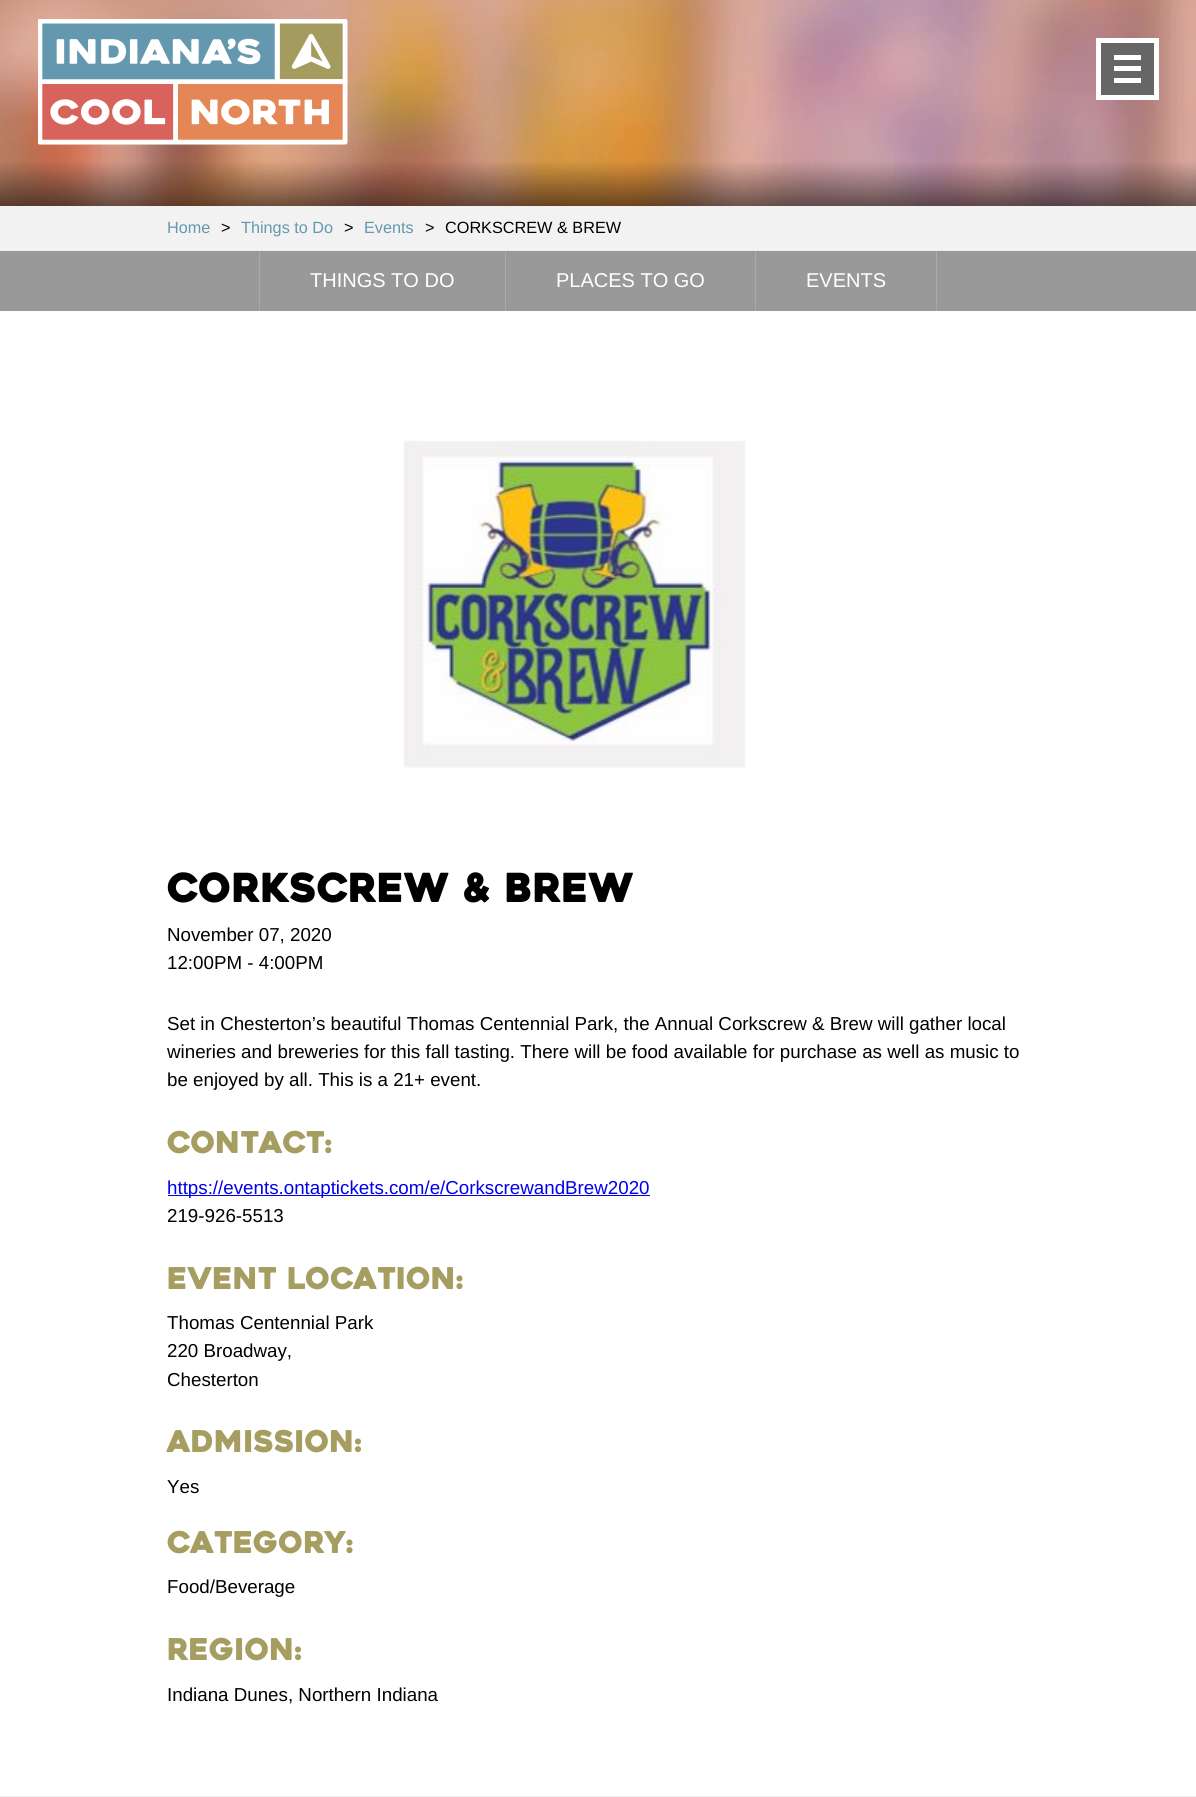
#include <cairo/cairo.h>
#include <math.h>
#include <stddef.h>


static void draw_image(cairo_t *cr, const char *path, double x, double y, double w, double h) {
  cairo_surface_t *image = cairo_image_surface_create_from_png(path);
  cairo_save(cr);
  cairo_set_source_surface(cr, image, x, y);
  cairo_rectangle(cr, x, y, w, h);
  cairo_fill(cr);
  cairo_restore(cr);
  cairo_surface_destroy(image);
}

static void draw(cairo_t *cr) {
  cairo_set_source_rgb(cr, 1, 1, 1);
  cairo_paint(cr);
  draw_image(cr, "images/1.png", 0, 0, 1196, 206);
  draw_image(cr, "images/2.png", 38, 19, 310, 126);
  cairo_set_source_rgb(cr, 102 / 255.0, 102 / 255.0, 102 / 255.0);
  cairo_rectangle(cr, 1098.5, 40.5, 58, 57);
  cairo_fill_preserve(cr);
  cairo_set_source_rgb(cr, 1, 1, 1);
  cairo_set_line_width(cr, 5);
  cairo_stroke(cr);
  cairo_rectangle(cr, 1114, 55, 27, 5);
  cairo_fill(cr);
  cairo_rectangle(cr, 1114, 66, 27, 5);
  cairo_fill(cr);
  cairo_rectangle(cr, 1114, 78, 27, 5);
  cairo_fill(cr);
  cairo_set_source_rgb(cr, 242 / 255.0, 242 / 255.0, 242 / 255.0);
  cairo_rectangle(cr, 0, 206, 1196, 44);
  cairo_fill(cr);
  cairo_set_source_rgb(cr, 238 / 255.0, 238 / 255.0, 238 / 255.0);
  cairo_rectangle(cr, 0, 250, 1196, 1);
  cairo_fill(cr);
  cairo_set_source_rgb(cr, 153 / 255.0, 153 / 255.0, 153 / 255.0);
  cairo_rectangle(cr, 0, 251, 1196, 60);
  cairo_fill(cr);
  cairo_set_source_rgb(cr, 170 / 255.0, 170 / 255.0, 170 / 255.0);
  cairo_rectangle(cr, 259, 251, 1, 60);
  cairo_fill(cr);
  cairo_rectangle(cr, 505, 251, 1, 60);
  cairo_fill(cr);
  cairo_rectangle(cr, 936, 251, 1, 60);
  cairo_fill(cr);
  cairo_rectangle(cr, 755, 251, 1, 60);
  cairo_fill(cr);
  draw_image(cr, "images/3.png", 403, 440, 343, 329);
  cairo_set_source_rgb(cr, 0, 0, 238 / 255.0);
  cairo_rectangle(cr, 168, 1195, 482, 1);
  cairo_fill(cr);
  cairo_set_source_rgb(cr, 238 / 255.0, 238 / 255.0, 238 / 255.0);
  cairo_rectangle(cr, 0, 1796, 1196, 1);
  cairo_fill(cr);
  cairo_select_font_face(cr, "Liberation Sans", CAIRO_FONT_SLANT_NORMAL, CAIRO_FONT_WEIGHT_NORMAL);
  cairo_set_font_size(cr, 16.25);
  cairo_set_source_rgb(cr, 99 / 255.0, 152 / 255.0, 175 / 255.0);
  cairo_move_to(cr, 167, 233);
  cairo_show_text(cr, "Home");
  cairo_set_source_rgb(cr, 0, 0, 0);
  cairo_move_to(cr, 221, 233);
  cairo_show_text(cr, ">");
  cairo_set_source_rgb(cr, 99 / 255.0, 152 / 255.0, 175 / 255.0);
  cairo_move_to(cr, 241, 233);
  cairo_show_text(cr, "Things to Do");
  cairo_set_source_rgb(cr, 0, 0, 0);
  cairo_move_to(cr, 344, 233);
  cairo_show_text(cr, ">");
  cairo_set_source_rgb(cr, 99 / 255.0, 152 / 255.0, 175 / 255.0);
  cairo_move_to(cr, 364, 233);
  cairo_show_text(cr, "Events");
  cairo_set_source_rgb(cr, 0, 0, 0);
  cairo_move_to(cr, 425, 233);
  cairo_show_text(cr, ">");
  cairo_move_to(cr, 445, 233);
  cairo_show_text(cr, "CORKSCREW & BREW");
  cairo_set_font_size(cr, 20);
  cairo_set_source_rgb(cr, 1, 1, 1);
  cairo_move_to(cr, 310, 287);
  cairo_show_text(cr, "THINGS TO DO");
  cairo_move_to(cr, 556, 287);
  cairo_show_text(cr, "PLACES TO GO");
  cairo_move_to(cr, 806, 287);
  cairo_show_text(cr, "EVENTS");
  cairo_select_font_face(cr, "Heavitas", CAIRO_FONT_SLANT_NORMAL, CAIRO_FONT_WEIGHT_NORMAL);
  cairo_set_font_size(cr, 40);
  cairo_set_source_rgb(cr, 0, 0, 0);
  cairo_move_to(cr, 167, 902);
  cairo_show_text(cr, "CORKSCREW & BREW");
  cairo_select_font_face(cr, "Liberation Sans", CAIRO_FONT_SLANT_NORMAL, CAIRO_FONT_WEIGHT_NORMAL);
  cairo_set_font_size(cr, 18.75);
  cairo_move_to(cr, 167, 941);
  cairo_show_text(cr, "November 07, 2020");
  cairo_move_to(cr, 167, 969);
  cairo_show_text(cr, "12:00PM - 4:00PM");
  cairo_move_to(cr, 167, 1030);
  cairo_show_text(cr, "Set in Chesterton’s beautiful Thomas Centennial Park, the Annual Corkscrew & Brew will gather local");
  cairo_move_to(cr, 167, 1058);
  cairo_show_text(cr, "wineries and breweries for this fall tasting. There will be food available for purchase as well as music to");
  cairo_move_to(cr, 167, 1086);
  cairo_show_text(cr, "be enjoyed by all. This is a 21+ event.");
  cairo_select_font_face(cr, "Heavitas", CAIRO_FONT_SLANT_NORMAL, CAIRO_FONT_WEIGHT_NORMAL);
  cairo_set_font_size(cr, 30);
  cairo_set_source_rgb(cr, 166 / 255.0, 157 / 255.0, 97 / 255.0);
  cairo_move_to(cr, 167, 1153);
  cairo_show_text(cr, "Contact:");
  cairo_select_font_face(cr, "Liberation Sans", CAIRO_FONT_SLANT_NORMAL, CAIRO_FONT_WEIGHT_NORMAL);
  cairo_set_font_size(cr, 18.75);
  cairo_set_source_rgb(cr, 0, 0, 238 / 255.0);
  cairo_move_to(cr, 167, 1194);
  cairo_show_text(cr, "https://events.ontaptickets.com/e/CorkscrewandBrew2020");
  cairo_set_source_rgb(cr, 0, 0, 0);
  cairo_move_to(cr, 167, 1222);
  cairo_show_text(cr, "219-926-5513");
  cairo_select_font_face(cr, "Heavitas", CAIRO_FONT_SLANT_NORMAL, CAIRO_FONT_WEIGHT_NORMAL);
  cairo_set_font_size(cr, 30);
  cairo_set_source_rgb(cr, 166 / 255.0, 157 / 255.0, 97 / 255.0);
  cairo_move_to(cr, 167, 1289);
  cairo_show_text(cr, "Event Location:");
  cairo_select_font_face(cr, "Liberation Sans", CAIRO_FONT_SLANT_NORMAL, CAIRO_FONT_WEIGHT_NORMAL);
  cairo_set_font_size(cr, 18.75);
  cairo_set_source_rgb(cr, 0, 0, 0);
  cairo_move_to(cr, 167, 1329);
  cairo_show_text(cr, "Thomas Centennial Park");
  cairo_move_to(cr, 167, 1357);
  cairo_show_text(cr, "220 Broadway,");
  cairo_move_to(cr, 167, 1386);
  cairo_show_text(cr, "Chesterton");
  cairo_select_font_face(cr, "Heavitas", CAIRO_FONT_SLANT_NORMAL, CAIRO_FONT_WEIGHT_NORMAL);
  cairo_set_font_size(cr, 30);
  cairo_set_source_rgb(cr, 166 / 255.0, 157 / 255.0, 97 / 255.0);
  cairo_move_to(cr, 167, 1452);
  cairo_show_text(cr, "Admission:");
  cairo_select_font_face(cr, "Liberation Sans", CAIRO_FONT_SLANT_NORMAL, CAIRO_FONT_WEIGHT_NORMAL);
  cairo_set_font_size(cr, 18.75);
  cairo_set_source_rgb(cr, 0, 0, 0);
  cairo_move_to(cr, 167, 1493);
  cairo_show_text(cr, "Yes");
  cairo_select_font_face(cr, "Heavitas", CAIRO_FONT_SLANT_NORMAL, CAIRO_FONT_WEIGHT_NORMAL);
  cairo_set_font_size(cr, 30);
  cairo_set_source_rgb(cr, 166 / 255.0, 157 / 255.0, 97 / 255.0);
  cairo_move_to(cr, 167, 1553);
  cairo_show_text(cr, "Category:");
  cairo_select_font_face(cr, "Liberation Sans", CAIRO_FONT_SLANT_NORMAL, CAIRO_FONT_WEIGHT_NORMAL);
  cairo_set_font_size(cr, 18.75);
  cairo_set_source_rgb(cr, 0, 0, 0);
  cairo_move_to(cr, 167, 1593);
  cairo_show_text(cr, "Food/Beverage");
  cairo_select_font_face(cr, "Heavitas", CAIRO_FONT_SLANT_NORMAL, CAIRO_FONT_WEIGHT_NORMAL);
  cairo_set_font_size(cr, 30);
  cairo_set_source_rgb(cr, 166 / 255.0, 157 / 255.0, 97 / 255.0);
  cairo_move_to(cr, 167, 1660);
  cairo_show_text(cr, "Region:");
  cairo_select_font_face(cr, "Liberation Sans", CAIRO_FONT_SLANT_NORMAL, CAIRO_FONT_WEIGHT_NORMAL);
  cairo_set_font_size(cr, 18.75);
  cairo_set_source_rgb(cr, 0, 0, 0);
  cairo_move_to(cr, 167, 1701);
  cairo_show_text(cr, "Indiana Dunes, Northern Indiana");
}

int main(void) {
  cairo_surface_t *surface = cairo_image_surface_create(CAIRO_FORMAT_RGB24, 1196, 1797);
  cairo_t *cr = cairo_create(surface);
  cairo_font_options_t *options = cairo_font_options_create();
  cairo_font_options_set_hint_metrics(options, CAIRO_HINT_METRICS_OFF);
  cairo_font_options_set_hint_style(options, CAIRO_HINT_STYLE_NONE);
  cairo_set_font_options(cr, options);
  cairo_set_miter_limit(cr, 4);
  draw(cr);
  cairo_surface_write_to_png(surface, "out.png");
  cairo_font_options_destroy(options);
  cairo_destroy(cr);
  cairo_surface_destroy(surface);
  return 0;
}
